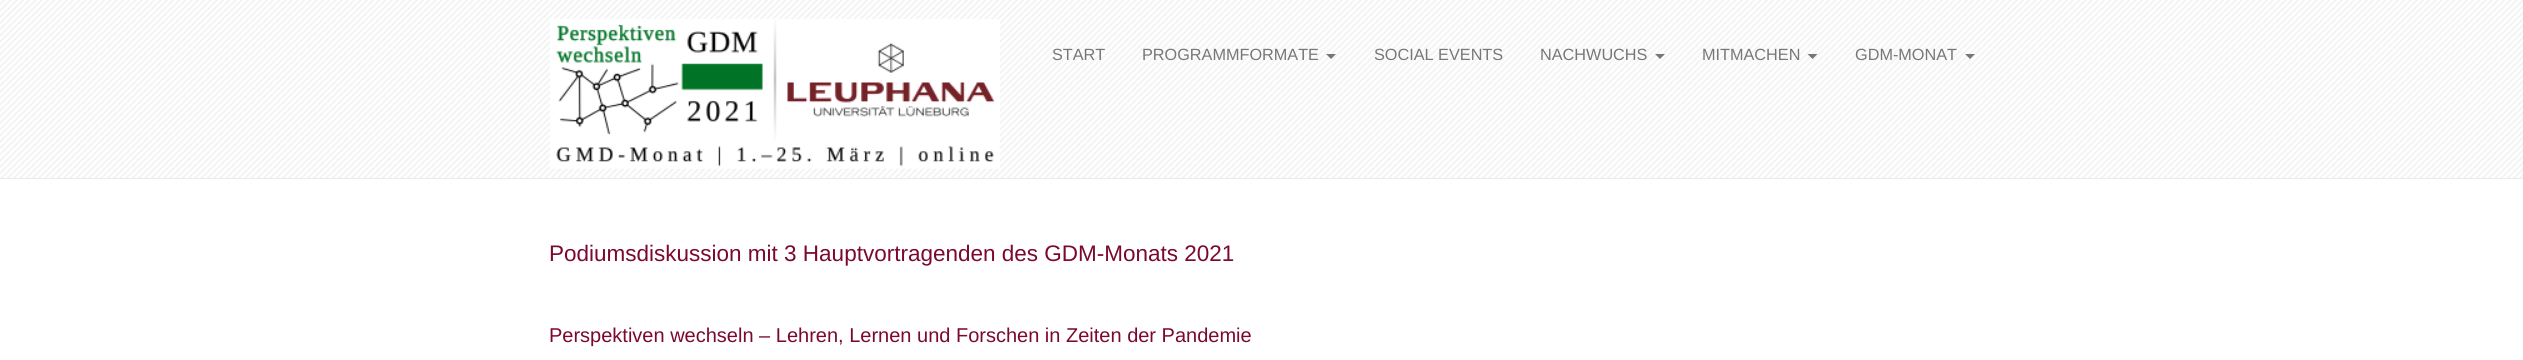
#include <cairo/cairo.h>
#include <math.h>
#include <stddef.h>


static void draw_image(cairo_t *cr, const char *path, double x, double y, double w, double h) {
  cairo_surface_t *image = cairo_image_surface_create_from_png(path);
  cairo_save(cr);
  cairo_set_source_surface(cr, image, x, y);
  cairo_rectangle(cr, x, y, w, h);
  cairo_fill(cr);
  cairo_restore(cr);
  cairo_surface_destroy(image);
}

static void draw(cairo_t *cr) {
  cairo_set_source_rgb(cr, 1, 1, 1);
  cairo_paint(cr);
  draw_image(cr, "images/1.png", 0, 0, 2523, 178);
  cairo_set_source_rgb(cr, 235 / 255.0, 235 / 255.0, 235 / 255.0);
  cairo_rectangle(cr, 0, 178, 2523, 1);
  cairo_fill(cr);
  draw_image(cr, "images/2.png", 550, 19, 450, 150);
  cairo_set_source_rgb(cr, 119 / 255.0, 119 / 255.0, 119 / 255.0);
  cairo_new_path(cr);
  cairo_move_to(cr, 1326, 54);
  cairo_line_to(cr, 1336, 54);
  cairo_line_to(cr, 1331, 59);
  cairo_close_path(cr);
  cairo_fill(cr);
  cairo_new_path(cr);
  cairo_move_to(cr, 1655, 54);
  cairo_line_to(cr, 1665, 54);
  cairo_line_to(cr, 1660, 59);
  cairo_close_path(cr);
  cairo_fill(cr);
  cairo_new_path(cr);
  cairo_move_to(cr, 1807.5, 54);
  cairo_line_to(cr, 1817.5, 54);
  cairo_line_to(cr, 1812.5, 59);
  cairo_close_path(cr);
  cairo_fill(cr);
  cairo_new_path(cr);
  cairo_move_to(cr, 1965, 54);
  cairo_line_to(cr, 1975, 54);
  cairo_line_to(cr, 1970, 59);
  cairo_close_path(cr);
  cairo_fill(cr);
  cairo_select_font_face(cr, "Liberation Sans", CAIRO_FONT_SLANT_NORMAL, CAIRO_FONT_WEIGHT_NORMAL);
  cairo_set_font_size(cr, 16.25);
  cairo_move_to(cr, 1052, 60);
  cairo_show_text(cr, "START");
  cairo_move_to(cr, 1142, 60);
  cairo_show_text(cr, "PROGRAMMFORMATE");
  cairo_move_to(cr, 1374, 60);
  cairo_show_text(cr, "SOCIAL EVENTS");
  cairo_move_to(cr, 1540, 60);
  cairo_show_text(cr, "NACHWUCHS");
  cairo_move_to(cr, 1702, 60);
  cairo_show_text(cr, "MITMACHEN");
  cairo_move_to(cr, 1855, 60);
  cairo_show_text(cr, "GDM-MONAT");
  cairo_set_font_size(cr, 22.5);
  cairo_set_source_rgb(cr, 123 / 255.0, 8 / 255.0, 50 / 255.0);
  cairo_move_to(cr, 549, 261);
  cairo_show_text(cr, "Podiumsdiskussion mit 3 Hauptvortragenden des GDM-Monats 2021");
  cairo_set_font_size(cr, 20);
  cairo_move_to(cr, 549, 342);
  cairo_show_text(cr, "Perspektiven wechseln – Lehren, Lernen und Forschen in Zeiten der Pandemie");
}

int main(void) {
  cairo_surface_t *surface = cairo_image_surface_create(CAIRO_FORMAT_RGB24, 2523, 360);
  cairo_t *cr = cairo_create(surface);
  cairo_font_options_t *options = cairo_font_options_create();
  cairo_font_options_set_hint_metrics(options, CAIRO_HINT_METRICS_OFF);
  cairo_font_options_set_hint_style(options, CAIRO_HINT_STYLE_NONE);
  cairo_set_font_options(cr, options);
  cairo_set_miter_limit(cr, 4);
  draw(cr);
  cairo_surface_write_to_png(surface, "out.png");
  cairo_font_options_destroy(options);
  cairo_destroy(cr);
  cairo_surface_destroy(surface);
  return 0;
}
